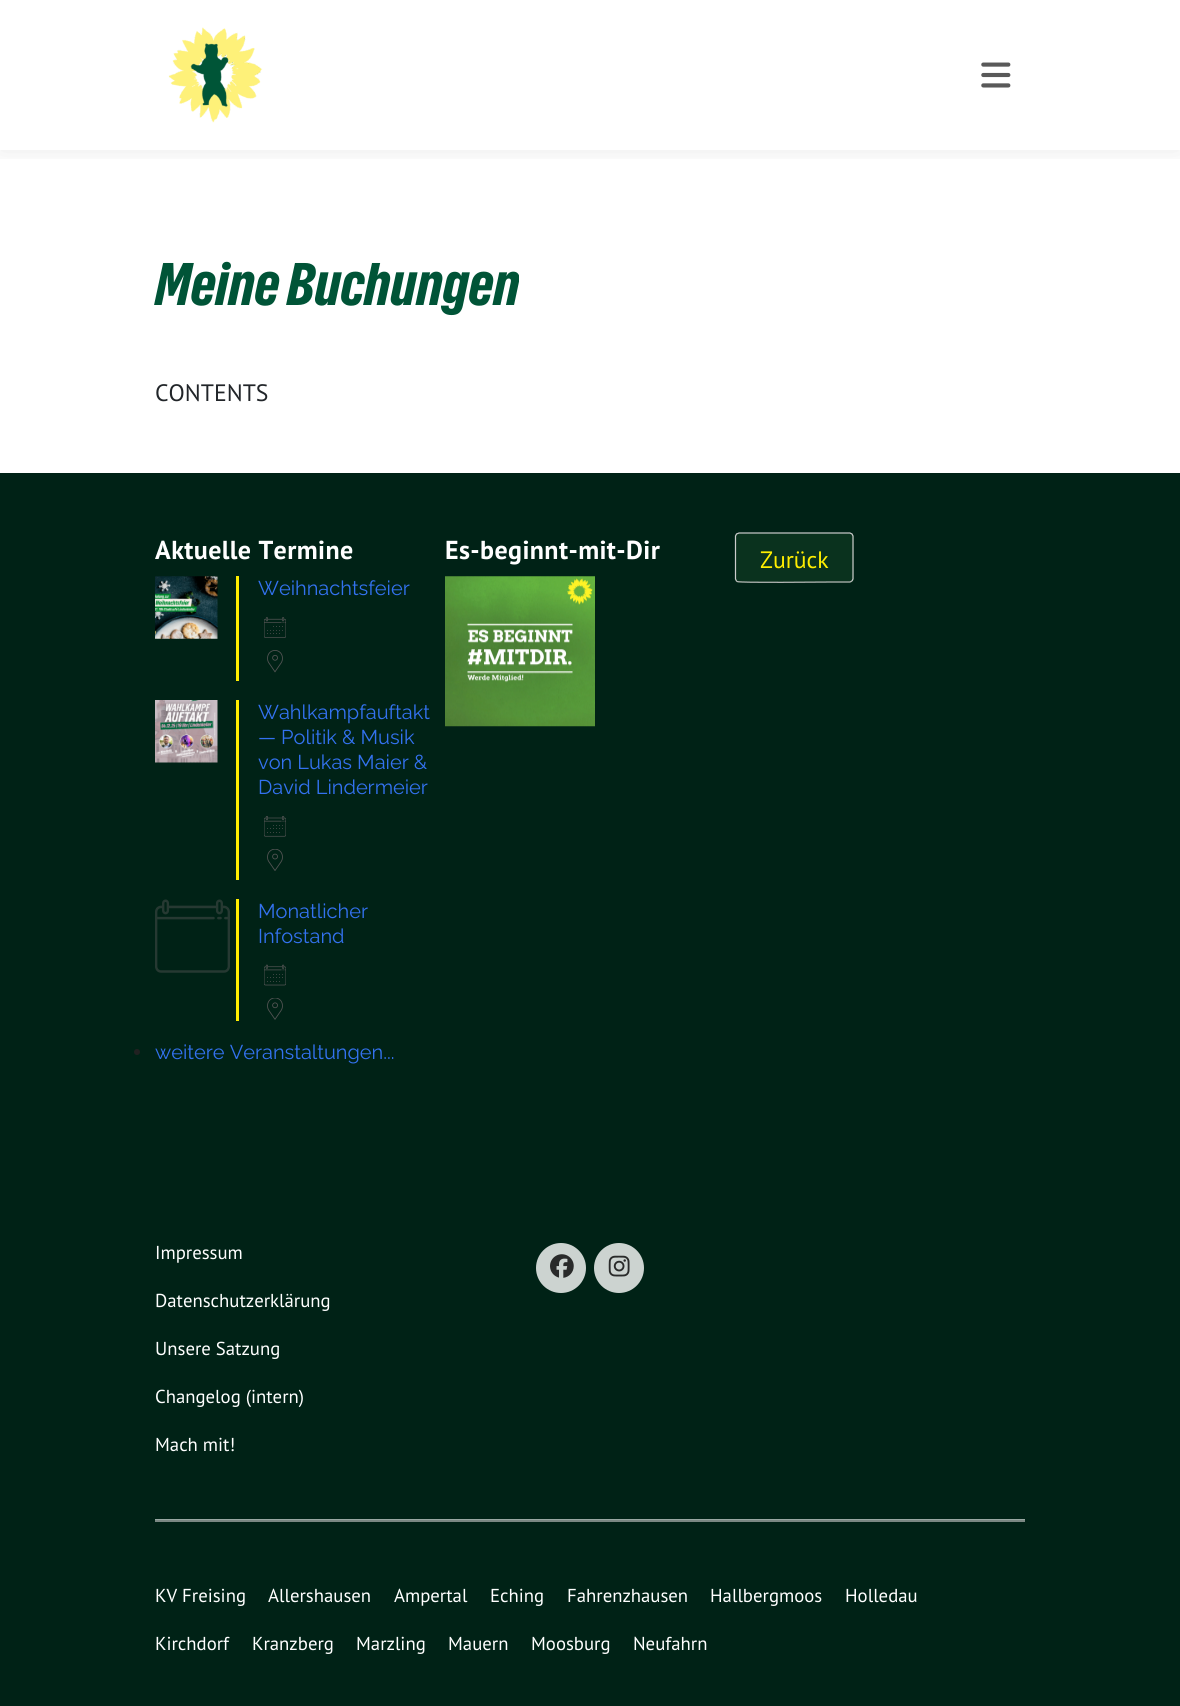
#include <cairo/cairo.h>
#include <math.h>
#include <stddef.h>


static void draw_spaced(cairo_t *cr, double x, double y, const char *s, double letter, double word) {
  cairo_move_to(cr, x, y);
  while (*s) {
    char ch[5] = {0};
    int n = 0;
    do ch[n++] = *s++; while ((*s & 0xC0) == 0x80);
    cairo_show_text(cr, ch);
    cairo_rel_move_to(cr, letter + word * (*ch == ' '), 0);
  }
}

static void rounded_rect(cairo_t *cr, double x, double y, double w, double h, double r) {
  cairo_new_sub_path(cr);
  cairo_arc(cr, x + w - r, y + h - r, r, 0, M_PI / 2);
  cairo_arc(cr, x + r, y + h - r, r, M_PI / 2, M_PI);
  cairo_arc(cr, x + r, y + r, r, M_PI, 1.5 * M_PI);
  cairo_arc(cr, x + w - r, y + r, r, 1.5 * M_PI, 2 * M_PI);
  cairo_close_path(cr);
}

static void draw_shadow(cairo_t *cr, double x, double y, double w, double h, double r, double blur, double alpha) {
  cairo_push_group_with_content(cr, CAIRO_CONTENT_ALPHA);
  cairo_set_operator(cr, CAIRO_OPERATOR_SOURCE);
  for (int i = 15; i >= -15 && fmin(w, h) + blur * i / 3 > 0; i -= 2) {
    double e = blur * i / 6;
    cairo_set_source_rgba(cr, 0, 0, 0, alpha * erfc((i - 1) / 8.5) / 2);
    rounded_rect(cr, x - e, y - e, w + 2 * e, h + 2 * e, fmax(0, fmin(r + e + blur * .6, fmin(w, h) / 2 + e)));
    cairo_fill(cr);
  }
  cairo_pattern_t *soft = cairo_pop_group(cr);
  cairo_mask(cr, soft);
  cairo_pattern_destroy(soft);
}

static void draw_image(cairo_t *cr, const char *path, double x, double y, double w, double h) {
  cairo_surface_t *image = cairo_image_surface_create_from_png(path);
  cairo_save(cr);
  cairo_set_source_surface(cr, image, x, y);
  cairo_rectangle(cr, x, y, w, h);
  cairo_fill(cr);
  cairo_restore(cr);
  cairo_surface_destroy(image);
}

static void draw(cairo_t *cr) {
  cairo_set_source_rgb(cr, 1, 1, 1);
  cairo_paint(cr);
  cairo_save(cr);
  cairo_rectangle(cr, 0, 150, 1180, 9);
  cairo_clip(cr);
  cairo_set_source_rgb(cr, 0, 0, 0);
  draw_shadow(cr, 0, 1, 1180, 150, 0, 12.5, 0.08);
  cairo_restore(cr);
  draw_image(cr, "images/1.png", 168, 27, 95, 96);
  draw_image(cr, "images/2.png", 981, 62, 30, 26);
  cairo_set_source_rgb(cr, 0, 34 / 255.0, 22 / 255.0);
  cairo_rectangle(cr, 0, 473, 1180, 1233);
  cairo_fill(cr);
  draw_image(cr, "images/3.png", 155, 576, 63, 63);
  cairo_set_source_rgb(cr, 1, 238 / 255.0, 0);
  cairo_rectangle(cr, 236, 576, 3, 105);
  cairo_fill(cr);
  draw_image(cr, "images/4.png", 264, 617, 22, 21);
  draw_image(cr, "images/5.png", 267, 650, 16, 23);
  draw_image(cr, "images/6.png", 155, 700, 63, 63);
  cairo_rectangle(cr, 236, 700, 3, 180);
  cairo_fill(cr);
  draw_image(cr, "images/7.png", 264, 816, 22, 21);
  draw_image(cr, "images/8.png", 267, 849, 16, 22);
  draw_image(cr, "images/9.png", 155, 899, 75, 74);
  cairo_rectangle(cr, 236, 899, 3, 122);
  cairo_fill(cr);
  draw_image(cr, "images/10.png", 264, 964, 22, 22);
  draw_image(cr, "images/11.png", 267, 998, 16, 22);
  cairo_set_source_rgb(cr, 33 / 255.0, 33 / 255.0, 33 / 255.0);
  cairo_arc(cr, 137, 1052, 3, 0, 2 * M_PI);
  cairo_fill(cr);
  draw_image(cr, "images/12.png", 445, 576, 150, 151);
  cairo_set_source_rgb(cr, 10 / 255.0, 50 / 255.0, 30 / 255.0);
  rounded_rect(cr, 735, 533, 119, 50, 4);
  cairo_fill(cr);
  cairo_new_path(cr);
  cairo_move_to(cr, 852, 581);
  cairo_line_to(cr, 850, 582);
  cairo_line_to(cr, 831.5, 582);
  cairo_curve_to(cr, 821.5, 582, 739.5, 583, 737, 581.5);
  cairo_line_to(cr, 736.5, 581);
  cairo_set_source_rgb(cr, 187 / 255.0, 187 / 255.0, 187 / 255.0);
  cairo_set_line_width(cr, 1.2);
  cairo_stroke(cr);
  cairo_new_path(cr);
  cairo_move_to(cr, 736.5, 581);
  cairo_line_to(cr, 735.5, 579);
  cairo_line_to(cr, 735.5, 536);
  cairo_line_to(cr, 736.5, 534);
  cairo_line_to(cr, 739, 533);
  cairo_line_to(cr, 850, 533);
  cairo_line_to(cr, 852, 534);
  cairo_line_to(cr, 853, 536);
  cairo_line_to(cr, 853, 579);
  cairo_line_to(cr, 852, 581);
  cairo_set_source_rgb(cr, 204 / 255.0, 204 / 255.0, 204 / 255.0);
  cairo_stroke(cr);
  cairo_set_source_rgb(cr, 204 / 255.0, 211 / 255.0, 208 / 255.0);
  cairo_arc(cr, 561, 1268, 25, 0, 2 * M_PI);
  cairo_fill(cr);
  draw_image(cr, "images/13.png", 550, 1254, 24, 24);
  cairo_arc(cr, 619, 1268, 25, 0, 2 * M_PI);
  cairo_fill(cr);
  draw_image(cr, "images/14.png", 608, 1255, 22, 22);
  cairo_set_source_rgb(cr, 122 / 255.0, 136 / 255.0, 131 / 255.0);
  cairo_rectangle(cr, 155, 1520, 870, 2);
  cairo_fill(cr);
  cairo_set_source_rgb(cr, 153 / 255.0, 167 / 255.0, 162 / 255.0);
  cairo_rectangle(cr, 155, 1519, 870, 1);
  cairo_fill(cr);
  cairo_select_font_face(cr, "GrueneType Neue", CAIRO_FONT_SLANT_NORMAL, CAIRO_FONT_WEIGHT_NORMAL);
  cairo_set_font_size(cr, 56.25);
  cairo_set_source_rgb(cr, 0, 84 / 255.0, 55 / 255.0);
  cairo_move_to(cr, 155, 305);
  cairo_show_text(cr, "Meine Buchungen");
  cairo_select_font_face(cr, "PT Sans", CAIRO_FONT_SLANT_NORMAL, CAIRO_FONT_WEIGHT_NORMAL);
  cairo_set_font_size(cr, 23.75);
  cairo_set_source_rgb(cr, 33 / 255.0, 37 / 255.0, 41 / 255.0);
  cairo_move_to(cr, 155, 401);
  cairo_show_text(cr, "CONTENTS");
  cairo_select_font_face(cr, "PT Sans", CAIRO_FONT_SLANT_NORMAL, CAIRO_FONT_WEIGHT_BOLD);
  cairo_set_font_size(cr, 26);
  cairo_set_source_rgb(cr, 1, 1, 1);
  draw_spaced(cr, 155, 559, "Aktuelle Termine", 0.4, 0);
  cairo_select_font_face(cr, "Raleway", CAIRO_FONT_SLANT_NORMAL, CAIRO_FONT_WEIGHT_NORMAL);
  cairo_set_font_size(cr, 20);
  cairo_set_source_rgb(cr, 51 / 255.0, 114 / 255.0, 240 / 255.0);
  cairo_move_to(cr, 258, 595);
  cairo_show_text(cr, "Weihnachtsfeier");
  cairo_move_to(cr, 258, 719);
  cairo_show_text(cr, "Wahlkampfauftakt");
  cairo_move_to(cr, 258, 744);
  cairo_show_text(cr, "— Politik & Musik");
  cairo_move_to(cr, 258, 769);
  cairo_show_text(cr, "von Lukas Maier &");
  cairo_move_to(cr, 258, 794);
  cairo_show_text(cr, "David Lindermeier");
  cairo_move_to(cr, 258, 918);
  cairo_show_text(cr, "Monatlicher");
  cairo_move_to(cr, 258, 943);
  cairo_show_text(cr, "Infostand");
  cairo_move_to(cr, 155, 1059);
  cairo_show_text(cr, "weitere Veranstaltungen...");
  cairo_select_font_face(cr, "PT Sans", CAIRO_FONT_SLANT_NORMAL, CAIRO_FONT_WEIGHT_BOLD);
  cairo_set_font_size(cr, 26);
  cairo_set_source_rgb(cr, 1, 1, 1);
  draw_spaced(cr, 445, 559, "Es-beginnt-mit-Dir", 0.4, 0);
  cairo_select_font_face(cr, "PT Sans", CAIRO_FONT_SLANT_NORMAL, CAIRO_FONT_WEIGHT_NORMAL);
  cairo_set_font_size(cr, 23.75);
  cairo_set_source_rgb(cr, 1, 238 / 255.0, 0);
  cairo_move_to(cr, 760, 568);
  cairo_show_text(cr, "Zurück");
  cairo_set_font_size(cr, 18.75);
  cairo_set_source_rgb(cr, 1, 1, 1);
  cairo_move_to(cr, 155, 1259);
  cairo_show_text(cr, "Impressum");
  cairo_move_to(cr, 155, 1307);
  cairo_show_text(cr, "Datenschutzerklärung");
  cairo_move_to(cr, 155, 1355);
  cairo_show_text(cr, "Unsere Satzung");
  cairo_move_to(cr, 155, 1403);
  cairo_show_text(cr, "Changelog (intern)");
  cairo_move_to(cr, 155, 1451);
  cairo_show_text(cr, "Mach mit!");
  cairo_move_to(cr, 155, 1602);
  cairo_show_text(cr, "KV Freising");
  cairo_move_to(cr, 268, 1602);
  cairo_show_text(cr, "Allershausen");
  cairo_move_to(cr, 394, 1602);
  cairo_show_text(cr, "Ampertal");
  cairo_move_to(cr, 490, 1602);
  cairo_show_text(cr, "Eching");
  cairo_move_to(cr, 567, 1602);
  cairo_show_text(cr, "Fahrenzhausen");
  cairo_move_to(cr, 710, 1602);
  cairo_show_text(cr, "Hallbergmoos");
  cairo_move_to(cr, 845, 1602);
  cairo_show_text(cr, "Holledau");
  cairo_move_to(cr, 155, 1650);
  cairo_show_text(cr, "Kirchdorf");
  cairo_move_to(cr, 252, 1650);
  cairo_show_text(cr, "Kranzberg");
  cairo_move_to(cr, 356, 1650);
  cairo_show_text(cr, "Marzling");
  cairo_move_to(cr, 448, 1650);
  cairo_show_text(cr, "Mauern");
  cairo_move_to(cr, 531, 1650);
  cairo_show_text(cr, "Moosburg");
  cairo_move_to(cr, 633, 1650);
  cairo_show_text(cr, "Neufahrn");
}

int main(void) {
  cairo_surface_t *surface = cairo_image_surface_create(CAIRO_FORMAT_RGB24, 1180, 1706);
  cairo_t *cr = cairo_create(surface);
  cairo_font_options_t *options = cairo_font_options_create();
  cairo_font_options_set_hint_metrics(options, CAIRO_HINT_METRICS_OFF);
  cairo_font_options_set_hint_style(options, CAIRO_HINT_STYLE_NONE);
  cairo_set_font_options(cr, options);
  cairo_set_miter_limit(cr, 4);
  draw(cr);
  cairo_surface_write_to_png(surface, "out.png");
  cairo_font_options_destroy(options);
  cairo_destroy(cr);
  cairo_surface_destroy(surface);
  return 0;
}
